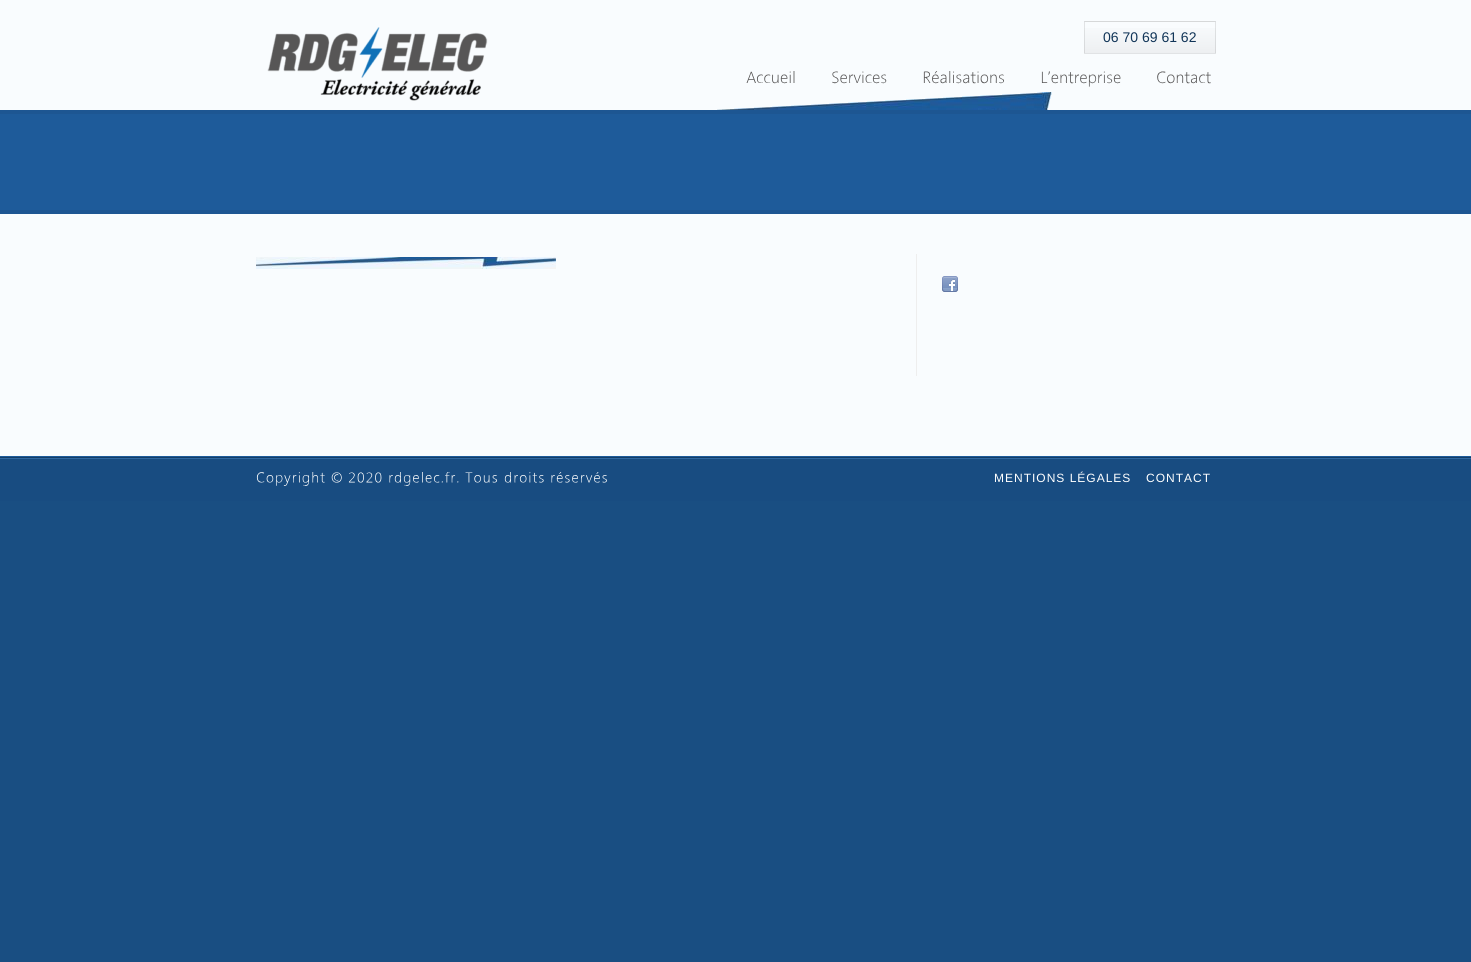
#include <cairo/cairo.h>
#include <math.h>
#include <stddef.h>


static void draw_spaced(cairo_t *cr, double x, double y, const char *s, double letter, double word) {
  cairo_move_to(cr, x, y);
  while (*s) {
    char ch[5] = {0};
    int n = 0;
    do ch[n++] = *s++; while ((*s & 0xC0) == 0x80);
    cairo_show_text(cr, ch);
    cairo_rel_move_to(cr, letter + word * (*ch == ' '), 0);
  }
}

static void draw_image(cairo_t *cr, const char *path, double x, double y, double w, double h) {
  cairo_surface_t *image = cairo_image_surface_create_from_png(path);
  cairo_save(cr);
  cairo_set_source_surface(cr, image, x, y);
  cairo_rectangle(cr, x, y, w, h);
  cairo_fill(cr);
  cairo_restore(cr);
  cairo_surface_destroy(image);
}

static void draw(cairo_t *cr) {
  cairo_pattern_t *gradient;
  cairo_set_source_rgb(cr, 25 / 255.0, 78 / 255.0, 130 / 255.0);
  cairo_paint(cr);
  cairo_set_source_rgb(cr, 249 / 255.0, 252 / 255.0, 254 / 255.0);
  cairo_rectangle(cr, 0, 0, 1471, 110);
  cairo_fill(cr);
  draw_image(cr, "images/1.png", 717, 92, 335, 18);
  draw_image(cr, "images/2.png", 267, 27, 221, 74);
  gradient = cairo_pattern_create_linear(1150, -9, 1150, 22);
  cairo_pattern_add_color_stop_rgba(gradient, 0, 249 / 255.0, 252 / 255.0, 254 / 255.0, 1);
  cairo_pattern_add_color_stop_rgba(gradient, 1, 237 / 255.0, 239 / 255.0, 241 / 255.0, 1);
  cairo_set_source(cr, gradient);
  cairo_pattern_destroy(gradient);
  cairo_new_path(cr);
  cairo_move_to(cr, 1085, 21);
  cairo_line_to(cr, 1215, 21);
  cairo_curve_to(cr, 1215.5, 21, 1216, 21.5, 1216, 22);
  cairo_line_to(cr, 1084, 22);
  cairo_curve_to(cr, 1084, 21.5, 1084.5, 21, 1085, 21);
  cairo_close_path(cr);
  cairo_fill(cr);
  gradient = cairo_pattern_create_linear(1150, 22, 1150, 53);
  cairo_pattern_add_color_stop_rgba(gradient, 0, 249 / 255.0, 252 / 255.0, 254 / 255.0, 1);
  cairo_pattern_add_color_stop_rgba(gradient, 1, 237 / 255.0, 239 / 255.0, 241 / 255.0, 1);
  cairo_set_source(cr, gradient);
  cairo_pattern_destroy(gradient);
  cairo_rectangle(cr, 1084, 28, 132, 25);
  cairo_fill(cr);
  cairo_rectangle(cr, 1084.5, 21.5, 131, 32);
  cairo_set_source_rgba(cr, 0, 0, 0, 0.1);
  cairo_set_line_width(cr, 1);
  cairo_stroke(cr);
  draw_image(cr, "images/3.png", 746, 71, 49, 13);
  draw_image(cr, "images/4.png", 832, 71, 55, 13);
  draw_image(cr, "images/5.png", 923, 71, 81, 13);
  draw_image(cr, "images/6.png", 1041, 71, 80, 16);
  draw_image(cr, "images/7.png", 1157, 71, 54, 13);
  cairo_set_source_rgb(cr, 30 / 255.0, 91 / 255.0, 154 / 255.0);
  cairo_rectangle(cr, 0, 114, 1471, 96);
  cairo_fill(cr);
  cairo_set_source_rgb(cr, 29 / 255.0, 86 / 255.0, 146 / 255.0);
  cairo_rectangle(cr, 0, 110, 1471, 4);
  cairo_fill(cr);
  cairo_rectangle(cr, 0, 210, 1471, 4);
  cairo_fill(cr);
  cairo_set_source_rgb(cr, 249 / 255.0, 252 / 255.0, 254 / 255.0);
  cairo_rectangle(cr, 0, 214, 1471, 242);
  cairo_fill(cr);
  draw_image(cr, "images/8.png", 256, 257, 300, 12);
  cairo_set_source_rgb(cr, 238 / 255.0, 238 / 255.0, 238 / 255.0);
  cairo_rectangle(cr, 916, 254, 1, 122);
  cairo_fill(cr);
  draw_image(cr, "images/9.png", 942, 276, 16, 16);
  cairo_set_source_rgb(cr, 29 / 255.0, 91 / 255.0, 154 / 255.0);
  cairo_rectangle(cr, 0, 456, 1471, 45);
  cairo_fill(cr);
  draw_image(cr, "images/10.png", 0, 457, 1471, 44);
  draw_image(cr, "images/11.png", 256, 472, 69, 14);
  draw_image(cr, "images/12.png", 331, 472, 11, 11);
  draw_image(cr, "images/13.png", 348, 472, 34, 11);
  draw_image(cr, "images/14.png", 389, 472, 70, 14);
  draw_image(cr, "images/15.png", 465, 472, 32, 11);
  draw_image(cr, "images/16.png", 504, 472, 40, 11);
  draw_image(cr, "images/17.png", 551, 472, 56, 11);
  cairo_select_font_face(cr, "Liberation Sans", CAIRO_FONT_SLANT_NORMAL, CAIRO_FONT_WEIGHT_NORMAL);
  cairo_set_font_size(cr, 14);
  cairo_set_source_rgb(cr, 17 / 255.0, 53 / 255.0, 88 / 255.0);
  cairo_move_to(cr, 1103, 42);
  cairo_show_text(cr, "06 70 69 61 62");
  cairo_set_font_size(cr, 12);
  cairo_set_source_rgb(cr, 1, 1, 1);
  draw_spaced(cr, 994, 482, "MENTIONS LÉGALES", 1, 0);
  draw_spaced(cr, 1146, 482, "CONTACT", 1, 0);
}

int main(void) {
  cairo_surface_t *surface = cairo_image_surface_create(CAIRO_FORMAT_RGB24, 1471, 962);
  cairo_t *cr = cairo_create(surface);
  cairo_font_options_t *options = cairo_font_options_create();
  cairo_font_options_set_hint_metrics(options, CAIRO_HINT_METRICS_OFF);
  cairo_font_options_set_hint_style(options, CAIRO_HINT_STYLE_NONE);
  cairo_set_font_options(cr, options);
  cairo_set_miter_limit(cr, 4);
  draw(cr);
  cairo_surface_write_to_png(surface, "out.png");
  cairo_font_options_destroy(options);
  cairo_destroy(cr);
  cairo_surface_destroy(surface);
  return 0;
}
